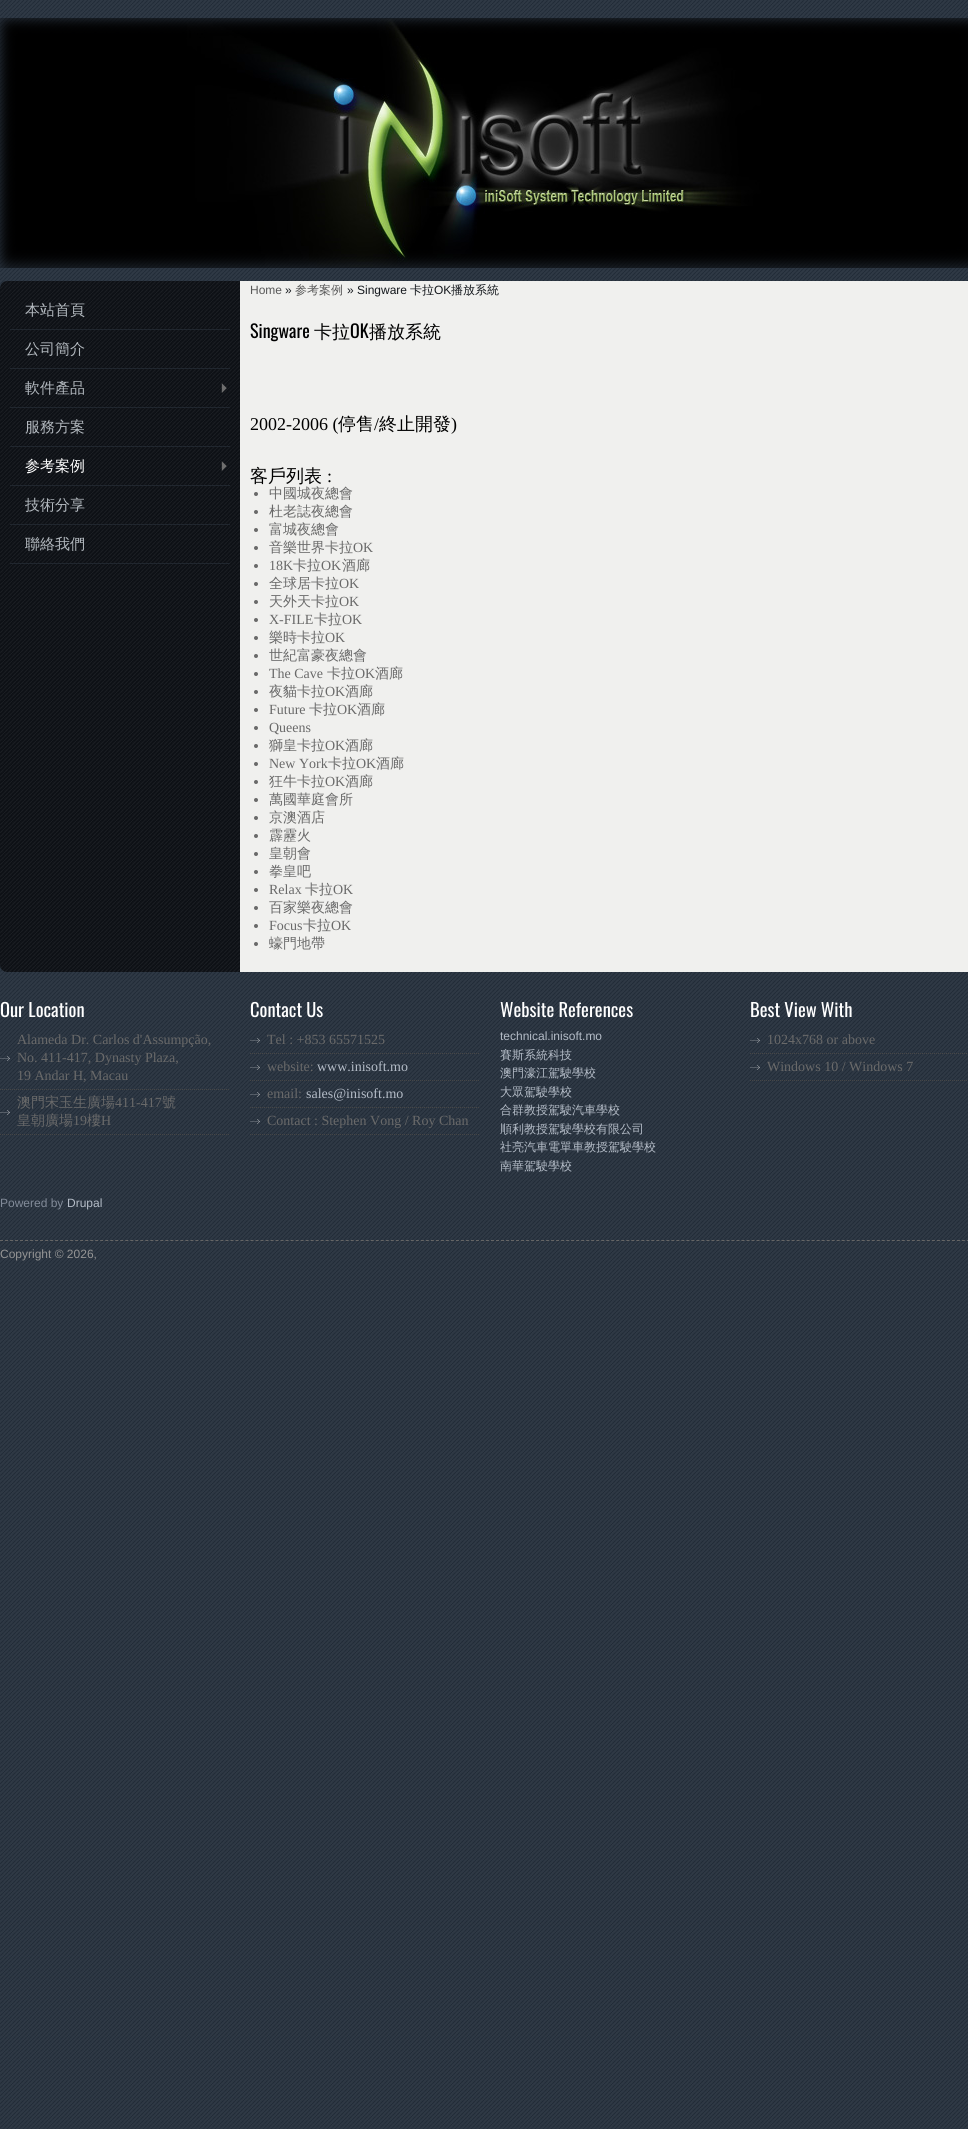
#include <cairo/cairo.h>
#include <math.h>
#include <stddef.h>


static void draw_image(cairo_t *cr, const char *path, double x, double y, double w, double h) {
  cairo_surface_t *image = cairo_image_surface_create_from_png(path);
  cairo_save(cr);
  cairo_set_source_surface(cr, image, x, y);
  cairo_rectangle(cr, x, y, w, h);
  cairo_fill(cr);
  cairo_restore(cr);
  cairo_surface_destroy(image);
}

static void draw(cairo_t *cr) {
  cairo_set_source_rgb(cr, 1, 1, 1);
  cairo_paint(cr);
  draw_image(cr, "images/1.png", 0, 0, 968, 2129);
  draw_image(cr, "images/2.png", 0, 18, 968, 250);
  draw_image(cr, "images/3.png", 0, 281, 968, 691);
  cairo_set_source_rgb(cr, 32 / 255.0, 38 / 255.0, 46 / 255.0);
  cairo_rectangle(cr, 10, 329, 220, 1);
  cairo_fill(cr);
  cairo_rectangle(cr, 10, 368, 220, 1);
  cairo_fill(cr);
  draw_image(cr, "images/4.png", 221, 383, 6, 10);
  cairo_rectangle(cr, 10, 407, 220, 1);
  cairo_fill(cr);
  cairo_rectangle(cr, 10, 446, 220, 1);
  cairo_fill(cr);
  draw_image(cr, "images/5.png", 221, 461, 6, 10);
  cairo_rectangle(cr, 10, 485, 220, 1);
  cairo_fill(cr);
  cairo_rectangle(cr, 10, 524, 220, 1);
  cairo_fill(cr);
  cairo_rectangle(cr, 10, 563, 220, 1);
  cairo_fill(cr);
  cairo_set_source_rgb(cr, 105 / 255.0, 105 / 255.0, 105 / 255.0);
  cairo_arc(cr, 256, 494, 2, 0, 2 * M_PI);
  cairo_fill(cr);
  cairo_arc(cr, 256, 512, 2, 0, 2 * M_PI);
  cairo_fill(cr);
  cairo_arc(cr, 256, 530, 2, 0, 2 * M_PI);
  cairo_fill(cr);
  cairo_arc(cr, 256, 548, 2, 0, 2 * M_PI);
  cairo_fill(cr);
  cairo_arc(cr, 256, 566, 2, 0, 2 * M_PI);
  cairo_fill(cr);
  cairo_arc(cr, 256, 584, 2, 0, 2 * M_PI);
  cairo_fill(cr);
  cairo_arc(cr, 256, 602, 2, 0, 2 * M_PI);
  cairo_fill(cr);
  cairo_arc(cr, 256, 620, 2, 0, 2 * M_PI);
  cairo_fill(cr);
  cairo_arc(cr, 256, 638, 2, 0, 2 * M_PI);
  cairo_fill(cr);
  cairo_arc(cr, 256, 656, 2, 0, 2 * M_PI);
  cairo_fill(cr);
  cairo_arc(cr, 256, 674, 2, 0, 2 * M_PI);
  cairo_fill(cr);
  cairo_arc(cr, 256, 692, 2, 0, 2 * M_PI);
  cairo_fill(cr);
  cairo_arc(cr, 256, 710, 2, 0, 2 * M_PI);
  cairo_fill(cr);
  cairo_arc(cr, 256, 728, 2, 0, 2 * M_PI);
  cairo_fill(cr);
  cairo_arc(cr, 256, 746, 2, 0, 2 * M_PI);
  cairo_fill(cr);
  cairo_arc(cr, 256, 764, 2, 0, 2 * M_PI);
  cairo_fill(cr);
  cairo_arc(cr, 256, 782, 2, 0, 2 * M_PI);
  cairo_fill(cr);
  cairo_arc(cr, 256, 800, 2, 0, 2 * M_PI);
  cairo_fill(cr);
  cairo_arc(cr, 256, 818, 2, 0, 2 * M_PI);
  cairo_fill(cr);
  cairo_arc(cr, 256, 836, 2, 0, 2 * M_PI);
  cairo_fill(cr);
  cairo_arc(cr, 256, 854, 2, 0, 2 * M_PI);
  cairo_fill(cr);
  cairo_arc(cr, 256, 872, 2, 0, 2 * M_PI);
  cairo_fill(cr);
  cairo_arc(cr, 256, 890, 2, 0, 2 * M_PI);
  cairo_fill(cr);
  cairo_arc(cr, 256, 908, 2, 0, 2 * M_PI);
  cairo_fill(cr);
  cairo_arc(cr, 256, 926, 2, 0, 2 * M_PI);
  cairo_fill(cr);
  cairo_arc(cr, 256, 944, 2, 0, 2 * M_PI);
  cairo_fill(cr);
  draw_image(cr, "images/6.png", 0, 1056, 10, 5);
  cairo_new_path(cr);
  cairo_move_to(cr, 0, 1089.5);
  cairo_line_to(cr, 230, 1089.5);
  cairo_set_source_rgb(cr, 70 / 255.0, 70 / 255.0, 70 / 255.0);
  cairo_set_line_width(cr, 1);
  cairo_set_dash(cr, (double[]){1, 1}, 2, 0);
  cairo_stroke(cr);
  draw_image(cr, "images/7.png", 0, 1110, 10, 5);
  cairo_new_path(cr);
  cairo_move_to(cr, 0, 1134.5);
  cairo_line_to(cr, 230, 1134.5);
  cairo_stroke(cr);
  draw_image(cr, "images/8.png", 250, 1038, 10, 5);
  cairo_new_path(cr);
  cairo_move_to(cr, 250, 1053.5);
  cairo_line_to(cr, 480, 1053.5);
  cairo_stroke(cr);
  draw_image(cr, "images/9.png", 250, 1065, 10, 5);
  cairo_new_path(cr);
  cairo_move_to(cr, 250, 1080.5);
  cairo_line_to(cr, 480, 1080.5);
  cairo_stroke(cr);
  draw_image(cr, "images/10.png", 250, 1092, 10, 5);
  cairo_new_path(cr);
  cairo_move_to(cr, 250, 1107.5);
  cairo_line_to(cr, 480, 1107.5);
  cairo_stroke(cr);
  draw_image(cr, "images/11.png", 250, 1119, 10, 5);
  cairo_new_path(cr);
  cairo_move_to(cr, 250, 1134.5);
  cairo_line_to(cr, 480, 1134.5);
  cairo_stroke(cr);
  draw_image(cr, "images/12.png", 750, 1038, 10, 5);
  cairo_new_path(cr);
  cairo_move_to(cr, 750, 1053.5);
  cairo_line_to(cr, 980, 1053.5);
  cairo_stroke(cr);
  draw_image(cr, "images/13.png", 750, 1065, 10, 5);
  cairo_new_path(cr);
  cairo_move_to(cr, 750, 1080.5);
  cairo_line_to(cr, 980, 1080.5);
  cairo_stroke(cr);
  cairo_new_path(cr);
  cairo_move_to(cr, 0, 1240.5);
  cairo_line_to(cr, 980, 1240.5);
  cairo_set_source_rgb(cr, 101 / 255.0, 101 / 255.0, 101 / 255.0);
  cairo_set_dash(cr, (double[]){3, 2.01}, 2, 0);
  cairo_stroke(cr);
  cairo_select_font_face(cr, "WenQuanYi Zen Hei Medium", CAIRO_FONT_SLANT_NORMAL, CAIRO_FONT_WEIGHT_NORMAL);
  cairo_set_font_size(cr, 15);
  cairo_set_source_rgb(cr, 178 / 255.0, 184 / 255.0, 190 / 255.0);
  cairo_move_to(cr, 25, 315);
  cairo_show_text(cr, "本站首頁");
  cairo_move_to(cr, 25, 354);
  cairo_show_text(cr, "公司簡介");
  cairo_move_to(cr, 25, 393);
  cairo_show_text(cr, "軟件產品");
  cairo_move_to(cr, 25, 432);
  cairo_show_text(cr, "服務方案");
  cairo_set_source_rgb(cr, 1, 1, 1);
  cairo_move_to(cr, 25, 471);
  cairo_show_text(cr, "参考案例");
  cairo_set_source_rgb(cr, 178 / 255.0, 184 / 255.0, 190 / 255.0);
  cairo_move_to(cr, 25, 510);
  cairo_show_text(cr, "技術分享");
  cairo_move_to(cr, 25, 549);
  cairo_show_text(cr, "聯絡我們");
  cairo_select_font_face(cr, "Liberation Sans", CAIRO_FONT_SLANT_NORMAL, CAIRO_FONT_WEIGHT_NORMAL);
  cairo_set_font_size(cr, 12);
  cairo_set_source_rgb(cr, 88 / 255.0, 88 / 255.0, 88 / 255.0);
  cairo_move_to(cr, 250, 294);
  cairo_show_text(cr, "Home");
  cairo_set_source_rgb(cr, 20 / 255.0, 24 / 255.0, 29 / 255.0);
  cairo_move_to(cr, 285, 294);
  cairo_show_text(cr, "»");
  cairo_select_font_face(cr, "WenQuanYi Zen Hei Medium", CAIRO_FONT_SLANT_NORMAL, CAIRO_FONT_WEIGHT_NORMAL);
  cairo_set_source_rgb(cr, 88 / 255.0, 88 / 255.0, 88 / 255.0);
  cairo_move_to(cr, 295, 294);
  cairo_show_text(cr, "参考案例");
  cairo_select_font_face(cr, "Liberation Sans", CAIRO_FONT_SLANT_NORMAL, CAIRO_FONT_WEIGHT_NORMAL);
  cairo_set_source_rgb(cr, 20 / 255.0, 24 / 255.0, 29 / 255.0);
  cairo_move_to(cr, 347, 294);
  cairo_show_text(cr, "» Singware");
  cairo_select_font_face(cr, "WenQuanYi Zen Hei Medium", CAIRO_FONT_SLANT_NORMAL, CAIRO_FONT_WEIGHT_NORMAL);
  cairo_move_to(cr, 410, 294);
  cairo_show_text(cr, "卡拉");
  cairo_select_font_face(cr, "Liberation Sans", CAIRO_FONT_SLANT_NORMAL, CAIRO_FONT_WEIGHT_NORMAL);
  cairo_move_to(cr, 434, 294);
  cairo_show_text(cr, "OK");
  cairo_select_font_face(cr, "WenQuanYi Zen Hei Medium", CAIRO_FONT_SLANT_NORMAL, CAIRO_FONT_WEIGHT_NORMAL);
  cairo_move_to(cr, 451, 294);
  cairo_show_text(cr, "播放系統");
  cairo_select_font_face(cr, "Oswald", CAIRO_FONT_SLANT_NORMAL, CAIRO_FONT_WEIGHT_NORMAL);
  cairo_set_font_size(cr, 18);
  cairo_set_source_rgb(cr, 0, 0, 0);
  cairo_move_to(cr, 250, 338);
  cairo_show_text(cr, "Singware");
  cairo_select_font_face(cr, "WenQuanYi Zen Hei Medium", CAIRO_FONT_SLANT_NORMAL, CAIRO_FONT_WEIGHT_NORMAL);
  cairo_move_to(cr, 314, 338);
  cairo_show_text(cr, "卡拉");
  cairo_select_font_face(cr, "Oswald", CAIRO_FONT_SLANT_NORMAL, CAIRO_FONT_WEIGHT_NORMAL);
  cairo_move_to(cr, 350, 338);
  cairo_show_text(cr, "OK");
  cairo_select_font_face(cr, "WenQuanYi Zen Hei Medium", CAIRO_FONT_SLANT_NORMAL, CAIRO_FONT_WEIGHT_NORMAL);
  cairo_move_to(cr, 369, 338);
  cairo_show_text(cr, "播放系統");
  cairo_select_font_face(cr, "Liberation Serif", CAIRO_FONT_SLANT_NORMAL, CAIRO_FONT_WEIGHT_NORMAL);
  cairo_move_to(cr, 250, 430);
  cairo_show_text(cr, "2002-2006 (");
  cairo_select_font_face(cr, "WenQuanYi Zen Hei Medium", CAIRO_FONT_SLANT_NORMAL, CAIRO_FONT_WEIGHT_NORMAL);
  cairo_move_to(cr, 338, 430);
  cairo_show_text(cr, "停售");
  cairo_select_font_face(cr, "Liberation Serif", CAIRO_FONT_SLANT_NORMAL, CAIRO_FONT_WEIGHT_NORMAL);
  cairo_move_to(cr, 374, 430);
  cairo_show_text(cr, "/");
  cairo_select_font_face(cr, "WenQuanYi Zen Hei Medium", CAIRO_FONT_SLANT_NORMAL, CAIRO_FONT_WEIGHT_NORMAL);
  cairo_move_to(cr, 379, 430);
  cairo_show_text(cr, "終止開發");
  cairo_select_font_face(cr, "Liberation Serif", CAIRO_FONT_SLANT_NORMAL, CAIRO_FONT_WEIGHT_NORMAL);
  cairo_move_to(cr, 451, 430);
  cairo_show_text(cr, ")");
  cairo_select_font_face(cr, "WenQuanYi Zen Hei Medium", CAIRO_FONT_SLANT_NORMAL, CAIRO_FONT_WEIGHT_NORMAL);
  cairo_move_to(cr, 250, 482);
  cairo_show_text(cr, "客戶列表");
  cairo_select_font_face(cr, "Liberation Serif", CAIRO_FONT_SLANT_NORMAL, CAIRO_FONT_WEIGHT_NORMAL);
  cairo_move_to(cr, 327, 482);
  cairo_show_text(cr, ":");
  cairo_select_font_face(cr, "WenQuanYi Zen Hei Medium", CAIRO_FONT_SLANT_NORMAL, CAIRO_FONT_WEIGHT_NORMAL);
  cairo_set_font_size(cr, 14);
  cairo_set_source_rgb(cr, 105 / 255.0, 105 / 255.0, 105 / 255.0);
  cairo_move_to(cr, 269, 498);
  cairo_show_text(cr, "中國城夜總會");
  cairo_move_to(cr, 269, 516);
  cairo_show_text(cr, "杜老誌夜總會");
  cairo_move_to(cr, 269, 534);
  cairo_show_text(cr, "富城夜總會");
  cairo_move_to(cr, 269, 552);
  cairo_show_text(cr, "音樂世界卡拉");
  cairo_select_font_face(cr, "Liberation Serif", CAIRO_FONT_SLANT_NORMAL, CAIRO_FONT_WEIGHT_NORMAL);
  cairo_move_to(cr, 353, 552);
  cairo_show_text(cr, "OK");
  cairo_move_to(cr, 269, 570);
  cairo_show_text(cr, "18K");
  cairo_select_font_face(cr, "WenQuanYi Zen Hei Medium", CAIRO_FONT_SLANT_NORMAL, CAIRO_FONT_WEIGHT_NORMAL);
  cairo_move_to(cr, 293, 570);
  cairo_show_text(cr, "卡拉");
  cairo_select_font_face(cr, "Liberation Serif", CAIRO_FONT_SLANT_NORMAL, CAIRO_FONT_WEIGHT_NORMAL);
  cairo_move_to(cr, 321, 570);
  cairo_show_text(cr, "OK");
  cairo_select_font_face(cr, "WenQuanYi Zen Hei Medium", CAIRO_FONT_SLANT_NORMAL, CAIRO_FONT_WEIGHT_NORMAL);
  cairo_move_to(cr, 342, 570);
  cairo_show_text(cr, "酒廊");
  cairo_move_to(cr, 269, 588);
  cairo_show_text(cr, "全球居卡拉");
  cairo_select_font_face(cr, "Liberation Serif", CAIRO_FONT_SLANT_NORMAL, CAIRO_FONT_WEIGHT_NORMAL);
  cairo_move_to(cr, 339, 588);
  cairo_show_text(cr, "OK");
  cairo_select_font_face(cr, "WenQuanYi Zen Hei Medium", CAIRO_FONT_SLANT_NORMAL, CAIRO_FONT_WEIGHT_NORMAL);
  cairo_move_to(cr, 269, 606);
  cairo_show_text(cr, "天外天卡拉");
  cairo_select_font_face(cr, "Liberation Serif", CAIRO_FONT_SLANT_NORMAL, CAIRO_FONT_WEIGHT_NORMAL);
  cairo_move_to(cr, 339, 606);
  cairo_show_text(cr, "OK");
  cairo_move_to(cr, 269, 624);
  cairo_show_text(cr, "X-FILE");
  cairo_select_font_face(cr, "WenQuanYi Zen Hei Medium", CAIRO_FONT_SLANT_NORMAL, CAIRO_FONT_WEIGHT_NORMAL);
  cairo_move_to(cr, 314, 624);
  cairo_show_text(cr, "卡拉");
  cairo_select_font_face(cr, "Liberation Serif", CAIRO_FONT_SLANT_NORMAL, CAIRO_FONT_WEIGHT_NORMAL);
  cairo_move_to(cr, 342, 624);
  cairo_show_text(cr, "OK");
  cairo_select_font_face(cr, "WenQuanYi Zen Hei Medium", CAIRO_FONT_SLANT_NORMAL, CAIRO_FONT_WEIGHT_NORMAL);
  cairo_move_to(cr, 269, 642);
  cairo_show_text(cr, "樂時卡拉");
  cairo_select_font_face(cr, "Liberation Serif", CAIRO_FONT_SLANT_NORMAL, CAIRO_FONT_WEIGHT_NORMAL);
  cairo_move_to(cr, 325, 642);
  cairo_show_text(cr, "OK");
  cairo_select_font_face(cr, "WenQuanYi Zen Hei Medium", CAIRO_FONT_SLANT_NORMAL, CAIRO_FONT_WEIGHT_NORMAL);
  cairo_move_to(cr, 269, 660);
  cairo_show_text(cr, "世紀富豪夜總會");
  cairo_select_font_face(cr, "Liberation Serif", CAIRO_FONT_SLANT_NORMAL, CAIRO_FONT_WEIGHT_NORMAL);
  cairo_move_to(cr, 269, 678);
  cairo_show_text(cr, "The Cave");
  cairo_select_font_face(cr, "WenQuanYi Zen Hei Medium", CAIRO_FONT_SLANT_NORMAL, CAIRO_FONT_WEIGHT_NORMAL);
  cairo_move_to(cr, 327, 678);
  cairo_show_text(cr, "卡拉");
  cairo_select_font_face(cr, "Liberation Serif", CAIRO_FONT_SLANT_NORMAL, CAIRO_FONT_WEIGHT_NORMAL);
  cairo_move_to(cr, 355, 678);
  cairo_show_text(cr, "OK");
  cairo_select_font_face(cr, "WenQuanYi Zen Hei Medium", CAIRO_FONT_SLANT_NORMAL, CAIRO_FONT_WEIGHT_NORMAL);
  cairo_move_to(cr, 375, 678);
  cairo_show_text(cr, "酒廊");
  cairo_move_to(cr, 269, 696);
  cairo_show_text(cr, "夜貓卡拉");
  cairo_select_font_face(cr, "Liberation Serif", CAIRO_FONT_SLANT_NORMAL, CAIRO_FONT_WEIGHT_NORMAL);
  cairo_move_to(cr, 325, 696);
  cairo_show_text(cr, "OK");
  cairo_select_font_face(cr, "WenQuanYi Zen Hei Medium", CAIRO_FONT_SLANT_NORMAL, CAIRO_FONT_WEIGHT_NORMAL);
  cairo_move_to(cr, 345, 696);
  cairo_show_text(cr, "酒廊");
  cairo_select_font_face(cr, "Liberation Serif", CAIRO_FONT_SLANT_NORMAL, CAIRO_FONT_WEIGHT_NORMAL);
  cairo_move_to(cr, 269, 714);
  cairo_show_text(cr, "Future");
  cairo_select_font_face(cr, "WenQuanYi Zen Hei Medium", CAIRO_FONT_SLANT_NORMAL, CAIRO_FONT_WEIGHT_NORMAL);
  cairo_move_to(cr, 309, 714);
  cairo_show_text(cr, "卡拉");
  cairo_select_font_face(cr, "Liberation Serif", CAIRO_FONT_SLANT_NORMAL, CAIRO_FONT_WEIGHT_NORMAL);
  cairo_move_to(cr, 337, 714);
  cairo_show_text(cr, "OK");
  cairo_select_font_face(cr, "WenQuanYi Zen Hei Medium", CAIRO_FONT_SLANT_NORMAL, CAIRO_FONT_WEIGHT_NORMAL);
  cairo_move_to(cr, 357, 714);
  cairo_show_text(cr, "酒廊");
  cairo_select_font_face(cr, "Liberation Serif", CAIRO_FONT_SLANT_NORMAL, CAIRO_FONT_WEIGHT_NORMAL);
  cairo_move_to(cr, 269, 732);
  cairo_show_text(cr, "Queens");
  cairo_select_font_face(cr, "WenQuanYi Zen Hei Medium", CAIRO_FONT_SLANT_NORMAL, CAIRO_FONT_WEIGHT_NORMAL);
  cairo_move_to(cr, 269, 750);
  cairo_show_text(cr, "獅皇卡拉");
  cairo_select_font_face(cr, "Liberation Serif", CAIRO_FONT_SLANT_NORMAL, CAIRO_FONT_WEIGHT_NORMAL);
  cairo_move_to(cr, 325, 750);
  cairo_show_text(cr, "OK");
  cairo_select_font_face(cr, "WenQuanYi Zen Hei Medium", CAIRO_FONT_SLANT_NORMAL, CAIRO_FONT_WEIGHT_NORMAL);
  cairo_move_to(cr, 345, 750);
  cairo_show_text(cr, "酒廊");
  cairo_select_font_face(cr, "Liberation Serif", CAIRO_FONT_SLANT_NORMAL, CAIRO_FONT_WEIGHT_NORMAL);
  cairo_move_to(cr, 269, 768);
  cairo_show_text(cr, "New York");
  cairo_select_font_face(cr, "WenQuanYi Zen Hei Medium", CAIRO_FONT_SLANT_NORMAL, CAIRO_FONT_WEIGHT_NORMAL);
  cairo_move_to(cr, 328, 768);
  cairo_show_text(cr, "卡拉");
  cairo_select_font_face(cr, "Liberation Serif", CAIRO_FONT_SLANT_NORMAL, CAIRO_FONT_WEIGHT_NORMAL);
  cairo_move_to(cr, 356, 768);
  cairo_show_text(cr, "OK");
  cairo_select_font_face(cr, "WenQuanYi Zen Hei Medium", CAIRO_FONT_SLANT_NORMAL, CAIRO_FONT_WEIGHT_NORMAL);
  cairo_move_to(cr, 376, 768);
  cairo_show_text(cr, "酒廊");
  cairo_move_to(cr, 269, 786);
  cairo_show_text(cr, "狂牛卡拉");
  cairo_select_font_face(cr, "Liberation Serif", CAIRO_FONT_SLANT_NORMAL, CAIRO_FONT_WEIGHT_NORMAL);
  cairo_move_to(cr, 325, 786);
  cairo_show_text(cr, "OK");
  cairo_select_font_face(cr, "WenQuanYi Zen Hei Medium", CAIRO_FONT_SLANT_NORMAL, CAIRO_FONT_WEIGHT_NORMAL);
  cairo_move_to(cr, 345, 786);
  cairo_show_text(cr, "酒廊");
  cairo_move_to(cr, 269, 804);
  cairo_show_text(cr, "萬國華庭會所");
  cairo_move_to(cr, 269, 822);
  cairo_show_text(cr, "京澳酒店");
  cairo_move_to(cr, 269, 840);
  cairo_show_text(cr, "霹靂火");
  cairo_move_to(cr, 269, 858);
  cairo_show_text(cr, "皇朝會");
  cairo_move_to(cr, 269, 876);
  cairo_show_text(cr, "拳皇吧");
  cairo_select_font_face(cr, "Liberation Serif", CAIRO_FONT_SLANT_NORMAL, CAIRO_FONT_WEIGHT_NORMAL);
  cairo_move_to(cr, 269, 894);
  cairo_show_text(cr, "Relax");
  cairo_select_font_face(cr, "WenQuanYi Zen Hei Medium", CAIRO_FONT_SLANT_NORMAL, CAIRO_FONT_WEIGHT_NORMAL);
  cairo_move_to(cr, 305, 894);
  cairo_show_text(cr, "卡拉");
  cairo_select_font_face(cr, "Liberation Serif", CAIRO_FONT_SLANT_NORMAL, CAIRO_FONT_WEIGHT_NORMAL);
  cairo_move_to(cr, 333, 894);
  cairo_show_text(cr, "OK");
  cairo_select_font_face(cr, "WenQuanYi Zen Hei Medium", CAIRO_FONT_SLANT_NORMAL, CAIRO_FONT_WEIGHT_NORMAL);
  cairo_move_to(cr, 269, 912);
  cairo_show_text(cr, "百家樂夜總會");
  cairo_select_font_face(cr, "Liberation Serif", CAIRO_FONT_SLANT_NORMAL, CAIRO_FONT_WEIGHT_NORMAL);
  cairo_move_to(cr, 269, 930);
  cairo_show_text(cr, "Focus");
  cairo_select_font_face(cr, "WenQuanYi Zen Hei Medium", CAIRO_FONT_SLANT_NORMAL, CAIRO_FONT_WEIGHT_NORMAL);
  cairo_move_to(cr, 303, 930);
  cairo_show_text(cr, "卡拉");
  cairo_select_font_face(cr, "Liberation Serif", CAIRO_FONT_SLANT_NORMAL, CAIRO_FONT_WEIGHT_NORMAL);
  cairo_move_to(cr, 331, 930);
  cairo_show_text(cr, "OK");
  cairo_select_font_face(cr, "WenQuanYi Zen Hei Medium", CAIRO_FONT_SLANT_NORMAL, CAIRO_FONT_WEIGHT_NORMAL);
  cairo_move_to(cr, 269, 948);
  cairo_show_text(cr, "蠔門地帶");
  cairo_select_font_face(cr, "Oswald", CAIRO_FONT_SLANT_NORMAL, CAIRO_FONT_WEIGHT_NORMAL);
  cairo_set_font_size(cr, 18.5);
  cairo_set_source_rgb(cr, 1, 1, 1);
  cairo_move_to(cr, 0, 1017);
  cairo_show_text(cr, "Our Location");
  cairo_select_font_face(cr, "Liberation Serif", CAIRO_FONT_SLANT_NORMAL, CAIRO_FONT_WEIGHT_NORMAL);
  cairo_set_font_size(cr, 14);
  cairo_set_source_rgb(cr, 105 / 255.0, 105 / 255.0, 105 / 255.0);
  cairo_move_to(cr, 17, 1044);
  cairo_show_text(cr, "Alameda Dr. Carlos d'Assumpção,");
  cairo_move_to(cr, 17, 1062);
  cairo_show_text(cr, "No. 411-417, Dynasty Plaza,");
  cairo_move_to(cr, 17, 1080);
  cairo_show_text(cr, "19 Andar H, Macau");
  cairo_select_font_face(cr, "WenQuanYi Zen Hei Medium", CAIRO_FONT_SLANT_NORMAL, CAIRO_FONT_WEIGHT_NORMAL);
  cairo_move_to(cr, 17, 1107);
  cairo_show_text(cr, "澳門宋玉生廣場");
  cairo_select_font_face(cr, "Liberation Serif", CAIRO_FONT_SLANT_NORMAL, CAIRO_FONT_WEIGHT_NORMAL);
  cairo_move_to(cr, 115, 1107);
  cairo_show_text(cr, "411-417");
  cairo_select_font_face(cr, "WenQuanYi Zen Hei Medium", CAIRO_FONT_SLANT_NORMAL, CAIRO_FONT_WEIGHT_NORMAL);
  cairo_move_to(cr, 162, 1107);
  cairo_show_text(cr, "號");
  cairo_move_to(cr, 17, 1125);
  cairo_show_text(cr, "皇朝廣場");
  cairo_select_font_face(cr, "Liberation Serif", CAIRO_FONT_SLANT_NORMAL, CAIRO_FONT_WEIGHT_NORMAL);
  cairo_move_to(cr, 73, 1125);
  cairo_show_text(cr, "19");
  cairo_select_font_face(cr, "WenQuanYi Zen Hei Medium", CAIRO_FONT_SLANT_NORMAL, CAIRO_FONT_WEIGHT_NORMAL);
  cairo_move_to(cr, 87, 1125);
  cairo_show_text(cr, "樓");
  cairo_select_font_face(cr, "Liberation Serif", CAIRO_FONT_SLANT_NORMAL, CAIRO_FONT_WEIGHT_NORMAL);
  cairo_move_to(cr, 101, 1125);
  cairo_show_text(cr, "H");
  cairo_select_font_face(cr, "Oswald", CAIRO_FONT_SLANT_NORMAL, CAIRO_FONT_WEIGHT_NORMAL);
  cairo_set_font_size(cr, 18.5);
  cairo_set_source_rgb(cr, 1, 1, 1);
  cairo_move_to(cr, 250, 1017);
  cairo_show_text(cr, "Contact Us");
  cairo_select_font_face(cr, "Liberation Serif", CAIRO_FONT_SLANT_NORMAL, CAIRO_FONT_WEIGHT_NORMAL);
  cairo_set_font_size(cr, 14);
  cairo_set_source_rgb(cr, 105 / 255.0, 105 / 255.0, 105 / 255.0);
  cairo_move_to(cr, 267, 1044);
  cairo_show_text(cr, "Tel : +853 65571525");
  cairo_move_to(cr, 267, 1071);
  cairo_show_text(cr, "website:");
  cairo_set_source_rgb(cr, 180 / 255.0, 188 / 255.0, 199 / 255.0);
  cairo_move_to(cr, 317, 1071);
  cairo_show_text(cr, "www.inisoft.mo");
  cairo_set_source_rgb(cr, 105 / 255.0, 105 / 255.0, 105 / 255.0);
  cairo_move_to(cr, 267, 1098);
  cairo_show_text(cr, "email:");
  cairo_set_source_rgb(cr, 180 / 255.0, 188 / 255.0, 199 / 255.0);
  cairo_move_to(cr, 306, 1098);
  cairo_show_text(cr, "sales@inisoft.mo");
  cairo_set_source_rgb(cr, 105 / 255.0, 105 / 255.0, 105 / 255.0);
  cairo_move_to(cr, 267, 1125);
  cairo_show_text(cr, "Contact : Stephen Vong / Roy Chan");
  cairo_select_font_face(cr, "Oswald", CAIRO_FONT_SLANT_NORMAL, CAIRO_FONT_WEIGHT_NORMAL);
  cairo_set_font_size(cr, 18.5);
  cairo_set_source_rgb(cr, 1, 1, 1);
  cairo_move_to(cr, 500, 1017);
  cairo_show_text(cr, "Website References");
  cairo_select_font_face(cr, "Liberation Sans", CAIRO_FONT_SLANT_NORMAL, CAIRO_FONT_WEIGHT_NORMAL);
  cairo_set_font_size(cr, 12);
  cairo_set_source_rgb(cr, 180 / 255.0, 188 / 255.0, 199 / 255.0);
  cairo_move_to(cr, 500, 1040);
  cairo_show_text(cr, "technical.inisoft.mo");
  cairo_select_font_face(cr, "WenQuanYi Zen Hei Medium", CAIRO_FONT_SLANT_NORMAL, CAIRO_FONT_WEIGHT_NORMAL);
  cairo_move_to(cr, 500, 1059);
  cairo_show_text(cr, "賽斯系統科技");
  cairo_move_to(cr, 500, 1077);
  cairo_show_text(cr, "澳門濠江駕駛學校");
  cairo_move_to(cr, 500, 1096);
  cairo_show_text(cr, "大眾駕駛學校");
  cairo_move_to(cr, 500, 1114);
  cairo_show_text(cr, "合群教授駕駛汽車學校");
  cairo_move_to(cr, 500, 1133);
  cairo_show_text(cr, "順利教授駕駛學校有限公司");
  cairo_move_to(cr, 500, 1151);
  cairo_show_text(cr, "社亮汽車電單車教授駕駛學校");
  cairo_move_to(cr, 500, 1170);
  cairo_show_text(cr, "南華駕駛學校");
  cairo_select_font_face(cr, "Oswald", CAIRO_FONT_SLANT_NORMAL, CAIRO_FONT_WEIGHT_NORMAL);
  cairo_set_font_size(cr, 18.5);
  cairo_set_source_rgb(cr, 1, 1, 1);
  cairo_move_to(cr, 750, 1017);
  cairo_show_text(cr, "Best View With");
  cairo_select_font_face(cr, "Liberation Serif", CAIRO_FONT_SLANT_NORMAL, CAIRO_FONT_WEIGHT_NORMAL);
  cairo_set_font_size(cr, 14);
  cairo_set_source_rgb(cr, 105 / 255.0, 105 / 255.0, 105 / 255.0);
  cairo_move_to(cr, 767, 1044);
  cairo_show_text(cr, "1024x768 or above");
  cairo_move_to(cr, 767, 1071);
  cairo_show_text(cr, "Windows 10 / Windows 7");
  cairo_select_font_face(cr, "Liberation Sans", CAIRO_FONT_SLANT_NORMAL, CAIRO_FONT_WEIGHT_NORMAL);
  cairo_set_font_size(cr, 12);
  cairo_set_source_rgb(cr, 130 / 255.0, 139 / 255.0, 153 / 255.0);
  cairo_move_to(cr, 0, 1207);
  cairo_show_text(cr, "Powered by");
  cairo_set_source_rgb(cr, 180 / 255.0, 188 / 255.0, 199 / 255.0);
  cairo_move_to(cr, 67, 1207);
  cairo_show_text(cr, "Drupal");
  cairo_set_source_rgb(cr, 148 / 255.0, 148 / 255.0, 148 / 255.0);
  cairo_move_to(cr, 0, 1258);
  cairo_show_text(cr, "Copyright © 2026,");
}

int main(void) {
  cairo_surface_t *surface = cairo_image_surface_create(CAIRO_FORMAT_RGB24, 968, 2129);
  cairo_t *cr = cairo_create(surface);
  cairo_font_options_t *options = cairo_font_options_create();
  cairo_font_options_set_hint_metrics(options, CAIRO_HINT_METRICS_OFF);
  cairo_font_options_set_hint_style(options, CAIRO_HINT_STYLE_NONE);
  cairo_set_font_options(cr, options);
  cairo_set_miter_limit(cr, 4);
  draw(cr);
  cairo_surface_write_to_png(surface, "out.png");
  cairo_font_options_destroy(options);
  cairo_destroy(cr);
  cairo_surface_destroy(surface);
  return 0;
}
